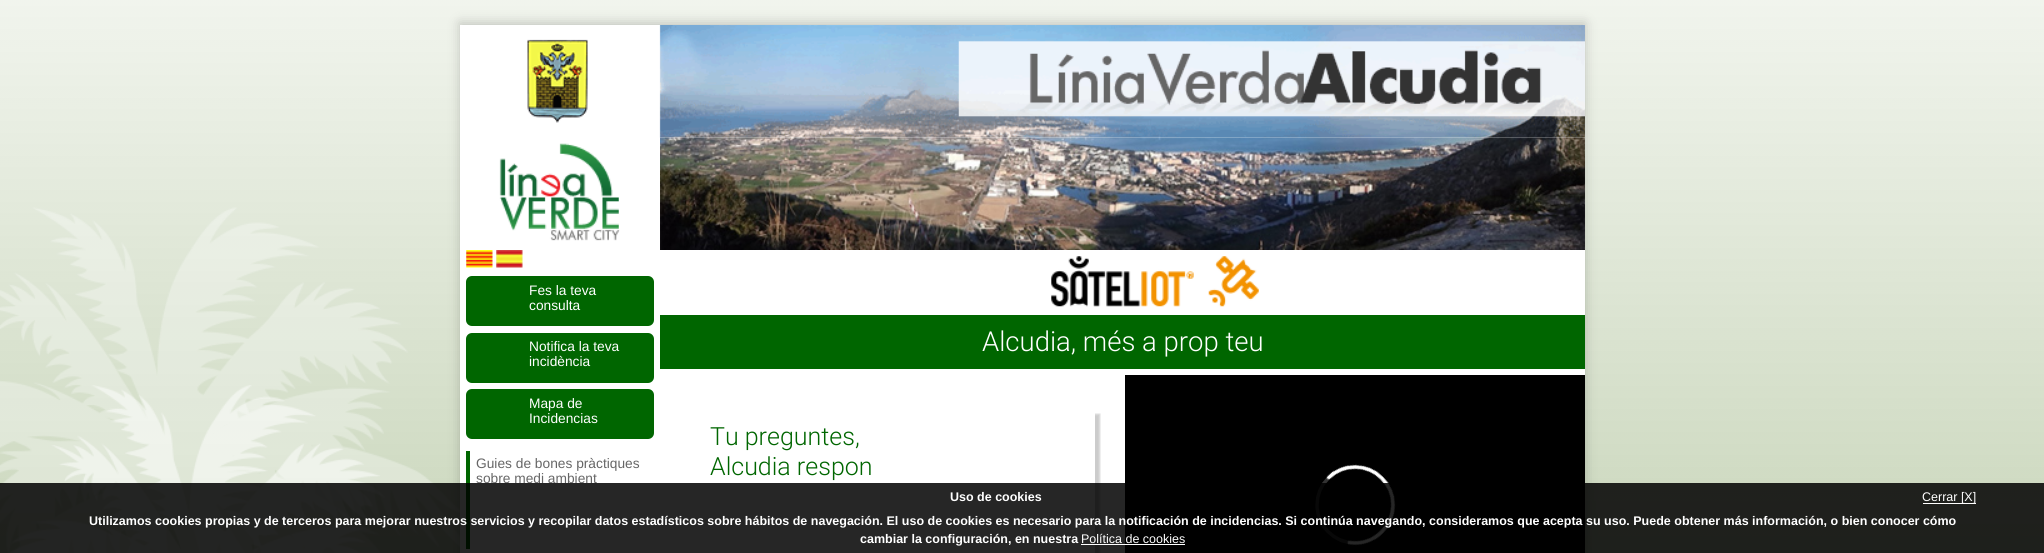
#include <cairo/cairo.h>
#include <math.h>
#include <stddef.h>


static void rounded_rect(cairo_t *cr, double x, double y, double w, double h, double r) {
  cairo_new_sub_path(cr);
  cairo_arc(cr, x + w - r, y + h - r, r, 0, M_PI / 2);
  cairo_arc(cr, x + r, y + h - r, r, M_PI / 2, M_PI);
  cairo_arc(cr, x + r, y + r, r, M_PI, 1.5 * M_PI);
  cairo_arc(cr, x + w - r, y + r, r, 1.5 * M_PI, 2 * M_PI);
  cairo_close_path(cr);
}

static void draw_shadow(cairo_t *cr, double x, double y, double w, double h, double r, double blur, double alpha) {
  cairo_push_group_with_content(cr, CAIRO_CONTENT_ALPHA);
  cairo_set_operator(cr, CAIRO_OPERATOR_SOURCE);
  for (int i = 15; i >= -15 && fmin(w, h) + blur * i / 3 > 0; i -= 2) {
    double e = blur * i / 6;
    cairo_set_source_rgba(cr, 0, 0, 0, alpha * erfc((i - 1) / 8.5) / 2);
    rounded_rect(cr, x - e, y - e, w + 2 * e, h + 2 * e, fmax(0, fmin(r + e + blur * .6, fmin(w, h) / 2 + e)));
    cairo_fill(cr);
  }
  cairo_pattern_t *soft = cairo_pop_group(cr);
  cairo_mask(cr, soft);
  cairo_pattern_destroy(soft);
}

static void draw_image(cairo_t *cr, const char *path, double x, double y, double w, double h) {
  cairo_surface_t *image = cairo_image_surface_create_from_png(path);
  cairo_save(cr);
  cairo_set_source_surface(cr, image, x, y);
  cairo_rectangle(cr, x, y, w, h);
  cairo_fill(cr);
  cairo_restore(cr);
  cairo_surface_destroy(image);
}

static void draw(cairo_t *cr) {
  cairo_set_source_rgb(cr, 1, 1, 1);
  cairo_paint(cr);
  draw_image(cr, "images/1.png", 0, 0, 2044, 553);
  cairo_set_source_rgb(cr, 0, 0, 0);
  draw_shadow(cr, 460, 23, 1125, 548, 0, 6, 0.2);
  cairo_set_source_rgb(cr, 1, 1, 1);
  cairo_rectangle(cr, 460, 25, 1125, 528);
  cairo_fill(cr);
  draw_image(cr, "images/2.png", 527, 25, 1058, 113);
  draw_image(cr, "images/3.png", 499, 143, 121, 98);
  draw_image(cr, "images/4.png", 660, 137, 925, 113);
  draw_image(cr, "images/5.png", 1051, 256, 208, 51);
  draw_image(cr, "images/6.png", 466, 250, 27, 18);
  draw_image(cr, "images/7.png", 496, 250, 27, 18);
  cairo_set_source_rgb(cr, 0, 102 / 255.0, 0);
  rounded_rect(cr, 466, 276, 188, 50, 6);
  cairo_fill(cr);
  rounded_rect(cr, 466, 333, 188, 50, 6);
  cairo_fill(cr);
  rounded_rect(cr, 466, 389, 188, 50, 6);
  cairo_fill(cr);
  cairo_rectangle(cr, 466, 451, 4, 98);
  cairo_fill(cr);
  cairo_rectangle(cr, 660, 315, 925, 54);
  cairo_fill(cr);
  cairo_save(cr);
  cairo_rectangle(cr, 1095, 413, 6, 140);
  cairo_clip(cr);
  cairo_set_source_rgb(cr, 0, 0, 0);
  draw_shadow(cr, 690, 414, 410, 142, 0, 1, 0.2);
  cairo_restore(cr);
  draw_image(cr, "images/8.png", 1125, 375, 460, 178);
  cairo_select_font_face(cr, "Liberation Sans", CAIRO_FONT_SLANT_NORMAL, CAIRO_FONT_WEIGHT_NORMAL);
  cairo_set_font_size(cr, 13.75);
  cairo_set_source_rgb(cr, 1, 1, 1);
  cairo_move_to(cr, 529, 295);
  cairo_show_text(cr, "Fes la teva");
  cairo_move_to(cr, 529, 310);
  cairo_show_text(cr, "consulta");
  cairo_move_to(cr, 529, 351);
  cairo_show_text(cr, "Notifica la teva");
  cairo_move_to(cr, 529, 366);
  cairo_show_text(cr, "incidència");
  cairo_move_to(cr, 529, 408);
  cairo_show_text(cr, "Mapa de");
  cairo_move_to(cr, 529, 423);
  cairo_show_text(cr, "Incidencias");
  cairo_set_source_rgb(cr, 102 / 255.0, 102 / 255.0, 102 / 255.0);
  cairo_move_to(cr, 476, 468);
  cairo_show_text(cr, "Guies de bones pràctiques");
  cairo_move_to(cr, 476, 483);
  cairo_show_text(cr, "sobre medi ambient");
  cairo_select_font_face(cr, "Roboto Light", CAIRO_FONT_SLANT_NORMAL, CAIRO_FONT_WEIGHT_NORMAL);
  cairo_set_font_size(cr, 27.5);
  cairo_set_source_rgb(cr, 1, 1, 1);
  cairo_move_to(cr, 982, 351);
  cairo_show_text(cr, "Alcudia, més a prop teu");
  cairo_set_font_size(cr, 25);
  cairo_set_source_rgb(cr, 0, 102 / 255.0, 0);
  cairo_move_to(cr, 710, 445);
  cairo_show_text(cr, "Tu preguntes,");
  cairo_move_to(cr, 710, 475);
  cairo_show_text(cr, "Alcudia respon");
  cairo_set_source_rgba(cr, 0, 0, 0, 0.85);
  cairo_rectangle(cr, 0, 483, 2044, 70);
  cairo_fill(cr);
  cairo_select_font_face(cr, "Liberation Sans", CAIRO_FONT_SLANT_NORMAL, CAIRO_FONT_WEIGHT_BOLD);
  cairo_set_font_size(cr, 12.5);
  cairo_set_source_rgb(cr, 1, 1, 1);
  cairo_move_to(cr, 950, 501);
  cairo_show_text(cr, "Uso de cookies");
  cairo_rectangle(cr, 1923, 503, 53, 1);
  cairo_fill(cr);
  cairo_select_font_face(cr, "Liberation Sans", CAIRO_FONT_SLANT_NORMAL, CAIRO_FONT_WEIGHT_NORMAL);
  cairo_move_to(cr, 1922, 501);
  cairo_show_text(cr, "Cerrar [X]");
  cairo_select_font_face(cr, "Liberation Sans", CAIRO_FONT_SLANT_NORMAL, CAIRO_FONT_WEIGHT_BOLD);
  cairo_move_to(cr, 89, 525);
  cairo_show_text(cr, "Utilizamos cookies propias y de terceros para mejorar nuestros servicios y recopilar datos estadísticos sobre hábitos de navegación. El uso de cookies es necesario para la notificación de incidencias. Si continúa navegando, consideramos que acepta su uso. Puede obtener más información, o bien conocer cómo");
  cairo_move_to(cr, 860, 543);
  cairo_show_text(cr, "cambiar la configuración, en nuestra");
  cairo_select_font_face(cr, "Liberation Sans", CAIRO_FONT_SLANT_NORMAL, CAIRO_FONT_WEIGHT_NORMAL);
  cairo_move_to(cr, 1081, 543);
  cairo_show_text(cr, "Política de cookies");
  cairo_rectangle(cr, 1081, 544, 104, 1);
  cairo_fill(cr);
}

int main(void) {
  cairo_surface_t *surface = cairo_image_surface_create(CAIRO_FORMAT_RGB24, 2044, 553);
  cairo_t *cr = cairo_create(surface);
  cairo_font_options_t *options = cairo_font_options_create();
  cairo_font_options_set_hint_metrics(options, CAIRO_HINT_METRICS_OFF);
  cairo_font_options_set_hint_style(options, CAIRO_HINT_STYLE_NONE);
  cairo_set_font_options(cr, options);
  cairo_set_miter_limit(cr, 4);
  draw(cr);
  cairo_surface_write_to_png(surface, "out.png");
  cairo_font_options_destroy(options);
  cairo_destroy(cr);
  cairo_surface_destroy(surface);
  return 0;
}
